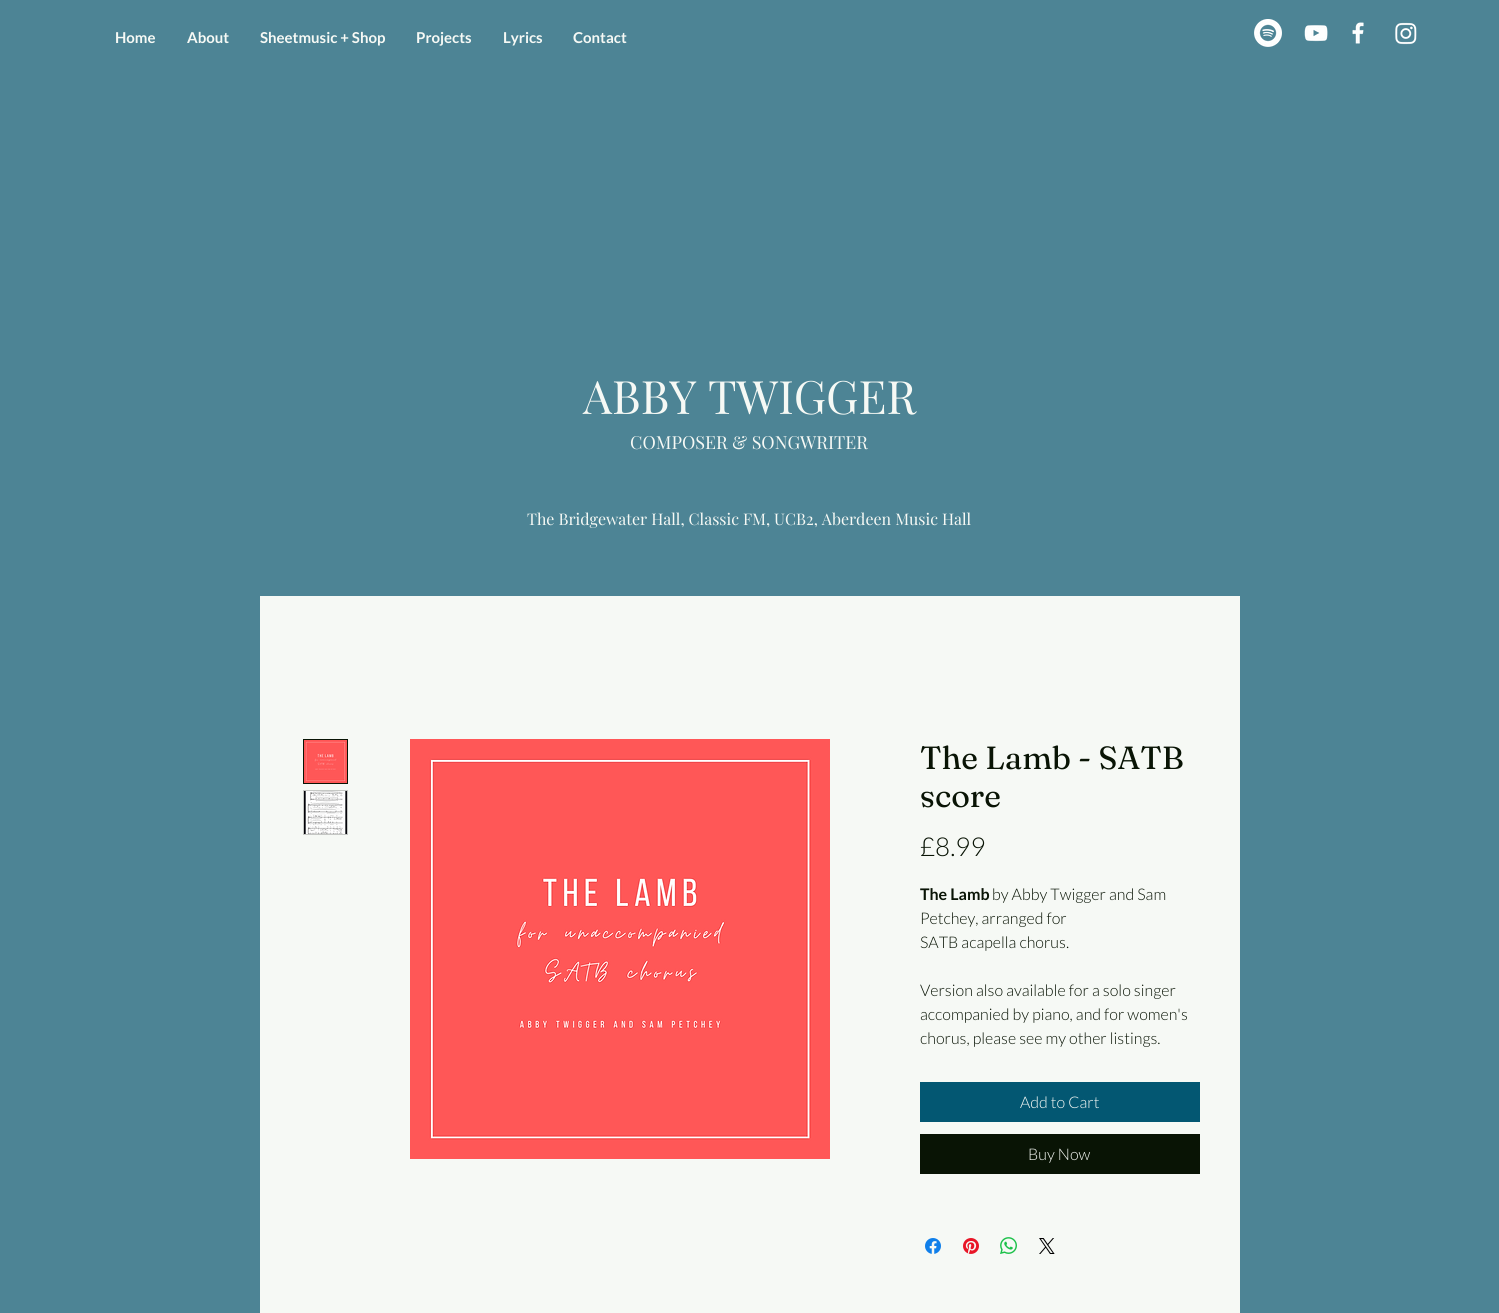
#include <cairo/cairo.h>
#include <math.h>
#include <stddef.h>


static void draw_image(cairo_t *cr, const char *path, double x, double y, double w, double h) {
  cairo_surface_t *image = cairo_image_surface_create_from_png(path);
  cairo_save(cr);
  cairo_set_source_surface(cr, image, x, y);
  cairo_rectangle(cr, x, y, w, h);
  cairo_fill(cr);
  cairo_restore(cr);
  cairo_surface_destroy(image);
}

static void draw(cairo_t *cr) {
  cairo_set_source_rgb(cr, 77 / 255.0, 132 / 255.0, 149 / 255.0);
  cairo_paint(cr);
  draw_image(cr, "images/1.png", 1254, 19, 28, 28);
  draw_image(cr, "images/2.png", 1304, 25, 24, 17);
  draw_image(cr, "images/3.png", 1352, 22, 12, 22);
  draw_image(cr, "images/4.png", 1395, 22, 22, 23);
  cairo_set_source_rgb(cr, 246 / 255.0, 249 / 255.0, 245 / 255.0);
  cairo_rectangle(cr, 260, 596, 980, 717);
  cairo_fill(cr);
  cairo_rectangle(cr, 303.5, 739.5, 44, 44);
  cairo_set_source_rgb(cr, 9 / 255.0, 20 / 255.0, 5 / 255.0);
  cairo_set_line_width(cr, 1);
  cairo_stroke(cr);
  draw_image(cr, "images/5.png", 304, 740, 43, 43);
  cairo_set_source_rgb(cr, 197 / 255.0, 199 / 255.0, 196 / 255.0);
  cairo_rectangle(cr, 303, 790, 45, 45);
  cairo_fill(cr);
  draw_image(cr, "images/6.png", 304, 791, 43, 43);
  draw_image(cr, "images/7.png", 410, 739, 420, 420);
  cairo_set_source_rgb(cr, 3 / 255.0, 87 / 255.0, 114 / 255.0);
  cairo_rectangle(cr, 920, 1082, 280, 40);
  cairo_fill(cr);
  cairo_set_source_rgb(cr, 9 / 255.0, 20 / 255.0, 5 / 255.0);
  cairo_rectangle(cr, 920, 1134, 280, 40);
  cairo_fill(cr);
  draw_image(cr, "images/8.png", 925, 1238, 16, 16);
  draw_image(cr, "images/9.png", 963, 1238, 16, 16);
  draw_image(cr, "images/10.png", 1000, 1237, 17, 17);
  draw_image(cr, "images/11.png", 1039, 1238, 16, 16);
  cairo_select_font_face(cr, "Lato", CAIRO_FONT_SLANT_NORMAL, CAIRO_FONT_WEIGHT_BOLD);
  cairo_set_font_size(cr, 15);
  cairo_set_source_rgb(cr, 246 / 255.0, 249 / 255.0, 245 / 255.0);
  cairo_move_to(cr, 115, 43);
  cairo_show_text(cr, "Home");
  cairo_move_to(cr, 187, 43);
  cairo_show_text(cr, "About");
  cairo_move_to(cr, 260, 43);
  cairo_show_text(cr, "Sheetmusic + Shop");
  cairo_move_to(cr, 416, 43);
  cairo_show_text(cr, "Projects");
  cairo_move_to(cr, 503, 43);
  cairo_show_text(cr, "Lyrics");
  cairo_move_to(cr, 573, 43);
  cairo_show_text(cr, "Contact");
  cairo_select_font_face(cr, "Playfair Display", CAIRO_FONT_SLANT_NORMAL, CAIRO_FONT_WEIGHT_NORMAL);
  cairo_set_font_size(cr, 46);
  cairo_move_to(cr, 583, 414);
  cairo_show_text(cr, "ABBY TWIGGER");
  cairo_set_font_size(cr, 18);
  cairo_move_to(cr, 630, 449);
  cairo_show_text(cr, "COMPOSER & SONGWRITER");
  cairo_set_font_size(cr, 16);
  cairo_move_to(cr, 527, 525);
  cairo_show_text(cr, "The Bridgewater Hall, Classic FM, UCB2, Aberdeen Music Hall");
  cairo_select_font_face(cr, "Fraunces", CAIRO_FONT_SLANT_NORMAL, CAIRO_FONT_WEIGHT_NORMAL);
  cairo_set_font_size(cr, 32);
  cairo_set_source_rgb(cr, 9 / 255.0, 20 / 255.0, 5 / 255.0);
  cairo_move_to(cr, 920, 769);
  cairo_show_text(cr, "The Lamb - SATB");
  cairo_move_to(cr, 920, 807);
  cairo_show_text(cr, "score");
  cairo_select_font_face(cr, "Lato Light", CAIRO_FONT_SLANT_NORMAL, CAIRO_FONT_WEIGHT_NORMAL);
  cairo_set_font_size(cr, 26);
  cairo_move_to(cr, 920, 856);
  cairo_show_text(cr, "£8.99");
  cairo_save(cr);
  cairo_rectangle(cr, 920, 882, 280, 168);
  cairo_clip(cr);
  cairo_select_font_face(cr, "Lato", CAIRO_FONT_SLANT_NORMAL, CAIRO_FONT_WEIGHT_BOLD);
  cairo_set_font_size(cr, 16);
  cairo_move_to(cr, 920, 900);
  cairo_show_text(cr, "The Lamb");
  cairo_restore(cr);
  cairo_set_font_size(cr, 16);
  cairo_move_to(cr, 992, 900);
  cairo_show_text(cr, "by Abby Twigger and Sam");
  cairo_move_to(cr, 920, 924);
  cairo_show_text(cr, "Petchey, arranged for");
  cairo_move_to(cr, 920, 948);
  cairo_show_text(cr, "SATB acapella chorus.");
  cairo_move_to(cr, 920, 996);
  cairo_show_text(cr, "Version also available for a solo singer");
  cairo_move_to(cr, 920, 1020);
  cairo_show_text(cr, "accompanied by piano, and for women's");
  cairo_move_to(cr, 920, 1044);
  cairo_show_text(cr, "chorus, please see my other listings.");
  cairo_set_source_rgb(cr, 246 / 255.0, 249 / 255.0, 245 / 255.0);
  cairo_move_to(cr, 1020, 1108);
  cairo_show_text(cr, "Add to Cart");
  cairo_move_to(cr, 1028, 1160);
  cairo_show_text(cr, "Buy Now");
}

int main(void) {
  cairo_surface_t *surface = cairo_image_surface_create(CAIRO_FORMAT_RGB24, 1499, 1313);
  cairo_t *cr = cairo_create(surface);
  cairo_font_options_t *options = cairo_font_options_create();
  cairo_font_options_set_hint_metrics(options, CAIRO_HINT_METRICS_OFF);
  cairo_font_options_set_hint_style(options, CAIRO_HINT_STYLE_NONE);
  cairo_set_font_options(cr, options);
  cairo_set_miter_limit(cr, 4);
  draw(cr);
  cairo_surface_write_to_png(surface, "out.png");
  cairo_font_options_destroy(options);
  cairo_destroy(cr);
  cairo_surface_destroy(surface);
  return 0;
}
